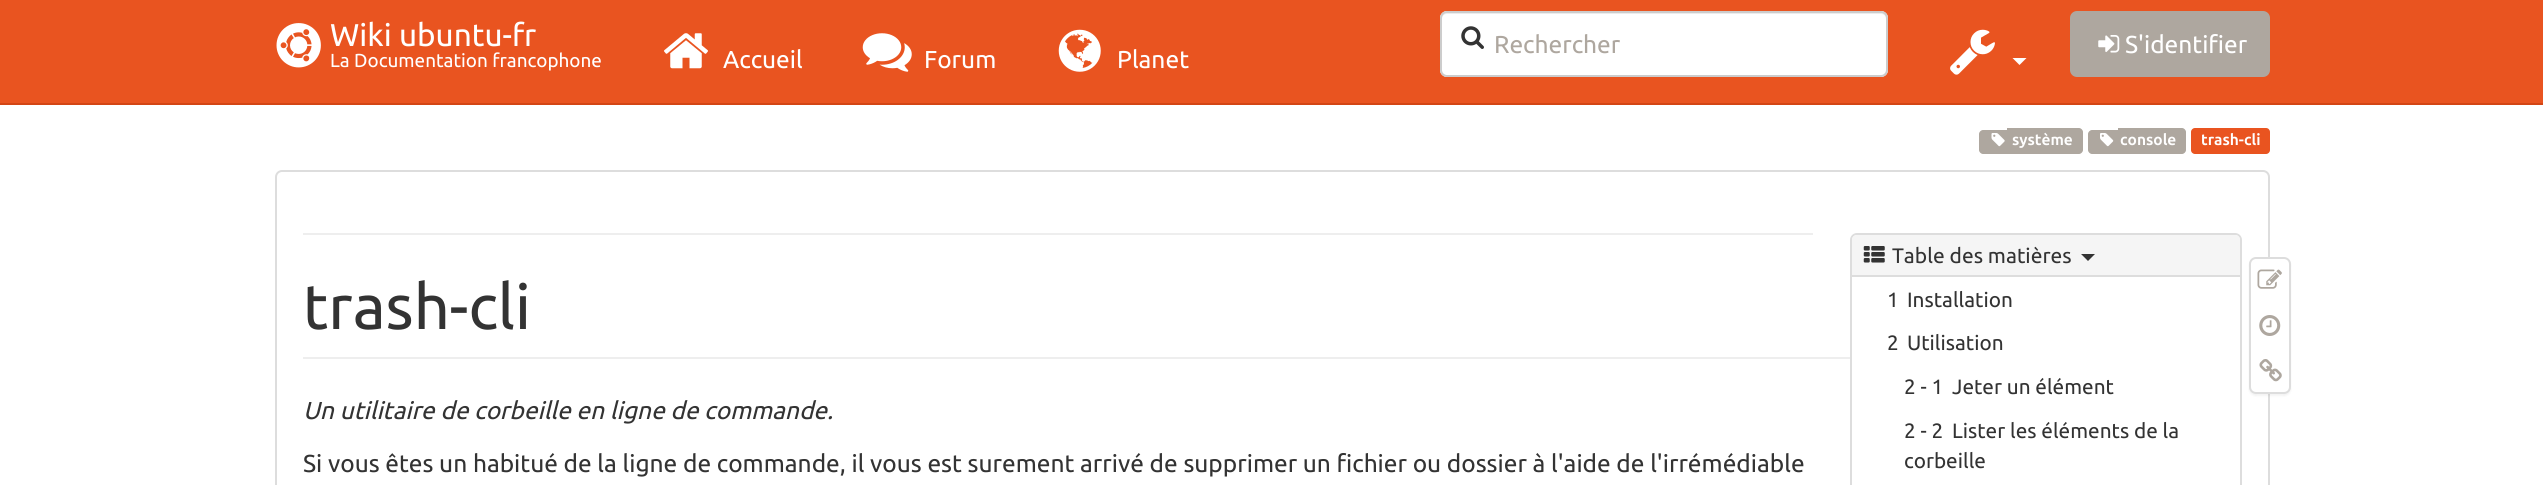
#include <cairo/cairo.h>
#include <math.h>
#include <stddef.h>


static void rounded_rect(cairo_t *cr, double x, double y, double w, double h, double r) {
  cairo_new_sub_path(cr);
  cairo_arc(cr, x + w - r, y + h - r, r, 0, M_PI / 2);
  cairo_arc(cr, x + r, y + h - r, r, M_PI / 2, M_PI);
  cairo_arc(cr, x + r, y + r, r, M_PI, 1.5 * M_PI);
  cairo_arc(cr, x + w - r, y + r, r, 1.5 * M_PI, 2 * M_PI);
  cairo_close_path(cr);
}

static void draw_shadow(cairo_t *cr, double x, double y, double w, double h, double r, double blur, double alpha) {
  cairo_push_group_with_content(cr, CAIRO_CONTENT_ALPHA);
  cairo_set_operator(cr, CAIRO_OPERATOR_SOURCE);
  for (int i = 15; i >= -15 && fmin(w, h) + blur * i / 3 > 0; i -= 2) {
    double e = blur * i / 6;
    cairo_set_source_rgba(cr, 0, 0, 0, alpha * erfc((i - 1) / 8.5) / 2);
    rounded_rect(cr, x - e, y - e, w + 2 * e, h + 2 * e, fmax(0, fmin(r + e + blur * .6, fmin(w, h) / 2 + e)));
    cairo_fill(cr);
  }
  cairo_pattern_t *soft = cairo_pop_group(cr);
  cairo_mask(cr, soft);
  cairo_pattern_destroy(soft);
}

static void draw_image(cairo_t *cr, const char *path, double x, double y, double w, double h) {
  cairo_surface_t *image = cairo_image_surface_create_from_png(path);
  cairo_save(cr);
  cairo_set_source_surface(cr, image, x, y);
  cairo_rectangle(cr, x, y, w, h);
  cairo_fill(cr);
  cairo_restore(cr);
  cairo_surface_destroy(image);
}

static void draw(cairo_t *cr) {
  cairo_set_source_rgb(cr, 1, 1, 1);
  cairo_paint(cr);
  cairo_set_source_rgb(cr, 233 / 255.0, 84 / 255.0, 32 / 255.0);
  cairo_rectangle(cr, 0, 0, 2543, 103);
  cairo_fill(cr);
  cairo_set_source_rgb(cr, 211 / 255.0, 70 / 255.0, 21 / 255.0);
  cairo_rectangle(cr, 0, 103, 2543, 2);
  cairo_fill(cr);
  draw_image(cr, "images/1.png", 276, 23, 45, 45);
  cairo_set_source_rgb(cr, 1, 1, 1);
  rounded_rect(cr, 1440, 11, 448, 66, 7);
  cairo_fill(cr);
  cairo_set_source_rgb(cr, 236 / 255.0, 236 / 255.0, 236 / 255.0);
  cairo_new_path(cr);
  cairo_move_to(cr, 1447, 14);
  cairo_line_to(cr, 1881, 14);
  cairo_curve_to(cr, 1884, 14, 1886, 16, 1886, 19);
  cairo_line_to(cr, 1886, 73);
  cairo_curve_to(cr, 1887, 72, 1887, 71, 1887, 70);
  cairo_line_to(cr, 1887, 17);
  cairo_curve_to(cr, 1887, 14, 1885, 12, 1882, 12);
  cairo_line_to(cr, 1447, 12);
  cairo_curve_to(cr, 1444, 12, 1442, 14, 1442, 17);
  cairo_line_to(cr, 1442, 19);
  cairo_curve_to(cr, 1442, 16, 1444, 14, 1447, 14);
  cairo_close_path(cr);
  cairo_fill(cr);
  rounded_rect(cr, 1441, 12, 446, 64, 6);
  cairo_set_source_rgb(cr, 204 / 255.0, 204 / 255.0, 204 / 255.0);
  cairo_stroke(cr);
  draw_image(cr, "images/2.png", 1461, 26, 23, 23);
  draw_image(cr, "images/3.png", 1950, 29, 45, 46);
  cairo_set_source_rgb(cr, 1, 1, 1);
  cairo_new_path(cr);
  cairo_move_to(cr, 2012.5, 58);
  cairo_line_to(cr, 2026.5, 58);
  cairo_line_to(cr, 2019.5, 65);
  cairo_close_path(cr);
  cairo_fill(cr);
  cairo_set_source_rgb(cr, 174 / 255.0, 167 / 255.0, 159 / 255.0);
  rounded_rect(cr, 2071, 12, 198, 64, 6);
  cairo_fill_preserve(cr);
  cairo_stroke(cr);
  draw_image(cr, "images/4.png", 2098, 35, 22, 18);
  draw_image(cr, "images/5.png", 664, 33, 44, 36);
  draw_image(cr, "images/6.png", 862, 33, 50, 39);
  draw_image(cr, "images/7.png", 1058, 29, 43, 43);
  cairo_new_path(cr);
  cairo_move_to(cr, 1983, 130);
  cairo_line_to(cr, 2007, 130);
  cairo_line_to(cr, 2007, 154);
  cairo_line_to(cr, 1983, 154);
  cairo_curve_to(cr, 1981, 154, 1979, 152, 1979, 150);
  cairo_line_to(cr, 1979, 134);
  cairo_curve_to(cr, 1979, 132, 1981, 130, 1983, 130);
  cairo_close_path(cr);
  cairo_fill(cr);
  cairo_rectangle(cr, 2007, 128, 4, 26);
  cairo_fill(cr);
  cairo_new_path(cr);
  cairo_move_to(cr, 2011, 128);
  cairo_line_to(cr, 2079, 128);
  cairo_curve_to(cr, 2081, 128, 2083, 130, 2083, 132);
  cairo_line_to(cr, 2083, 150);
  cairo_curve_to(cr, 2083, 152, 2081, 154, 2079, 154);
  cairo_line_to(cr, 2011, 154);
  cairo_close_path(cr);
  cairo_fill(cr);
  draw_image(cr, "images/8.png", 1991, 133, 14, 14);
  cairo_new_path(cr);
  cairo_move_to(cr, 2092, 130);
  cairo_line_to(cr, 2118, 130);
  cairo_line_to(cr, 2118, 154);
  cairo_line_to(cr, 2092, 154);
  cairo_curve_to(cr, 2090, 154, 2088, 152, 2088, 150);
  cairo_line_to(cr, 2088, 134);
  cairo_curve_to(cr, 2088, 132, 2090, 130, 2092, 130);
  cairo_close_path(cr);
  cairo_fill(cr);
  cairo_rectangle(cr, 2118, 128, 3, 26);
  cairo_fill(cr);
  cairo_new_path(cr);
  cairo_move_to(cr, 2121, 128);
  cairo_line_to(cr, 2182, 128);
  cairo_curve_to(cr, 2184, 128, 2186, 130, 2186, 132);
  cairo_line_to(cr, 2186, 150);
  cairo_curve_to(cr, 2186, 152, 2184, 154, 2182, 154);
  cairo_line_to(cr, 2121, 154);
  cairo_close_path(cr);
  cairo_fill(cr);
  draw_image(cr, "images/9.png", 2100, 133, 14, 14);
  cairo_set_source_rgb(cr, 233 / 255.0, 84 / 255.0, 32 / 255.0);
  rounded_rect(cr, 2191, 128, 79, 26, 4);
  cairo_fill(cr);
  rounded_rect(cr, 276, 171, 1993, 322, 6);
  cairo_set_source_rgb(cr, 221 / 255.0, 221 / 255.0, 221 / 255.0);
  cairo_stroke(cr);
  cairo_set_source_rgb(cr, 238 / 255.0, 238 / 255.0, 238 / 255.0);
  cairo_rectangle(cr, 303, 233, 1510, 2);
  cairo_fill(cr);
  cairo_rectangle(cr, 303, 357, 1547, 2);
  cairo_fill(cr);
  rounded_rect(cr, 1851, 234, 390, 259, 6);
  cairo_set_source_rgb(cr, 221 / 255.0, 221 / 255.0, 221 / 255.0);
  cairo_stroke(cr);
  cairo_set_source_rgb(cr, 245 / 255.0, 245 / 255.0, 245 / 255.0);
  cairo_new_path(cr);
  cairo_move_to(cr, 1857, 235);
  cairo_line_to(cr, 2235, 235);
  cairo_curve_to(cr, 2238, 235, 2240, 237, 2240, 240);
  cairo_line_to(cr, 2240, 277);
  cairo_line_to(cr, 1852, 277);
  cairo_line_to(cr, 1852, 240);
  cairo_curve_to(cr, 1852, 237, 1854, 235, 1857, 235);
  cairo_close_path(cr);
  cairo_fill(cr);
  cairo_set_source_rgb(cr, 221 / 255.0, 221 / 255.0, 221 / 255.0);
  cairo_rectangle(cr, 1852, 275, 388, 2);
  cairo_fill(cr);
  draw_image(cr, "images/10.png", 1863, 246, 22, 17);
  cairo_set_source_rgb(cr, 51 / 255.0, 51 / 255.0, 51 / 255.0);
  cairo_new_path(cr);
  cairo_move_to(cr, 2081, 254);
  cairo_line_to(cr, 2095, 254);
  cairo_line_to(cr, 2088, 261);
  cairo_close_path(cr);
  cairo_fill(cr);
  cairo_set_source_rgb(cr, 0, 0, 0);
  draw_shadow(cr, 2249, 259, 42, 137, 7, 1, 0.05);
  cairo_set_source_rgb(cr, 1, 1, 1);
  rounded_rect(cr, 2250, 258, 40, 135, 6);
  cairo_fill_preserve(cr);
  cairo_set_source_rgb(cr, 221 / 255.0, 221 / 255.0, 221 / 255.0);
  cairo_stroke(cr);
  draw_image(cr, "images/11.png", 2257, 269, 25, 20);
  draw_image(cr, "images/12.png", 2259, 315, 22, 21);
  draw_image(cr, "images/13.png", 2259, 359, 23, 23);
  cairo_select_font_face(cr, "Ubuntu", CAIRO_FONT_SLANT_NORMAL, CAIRO_FONT_WEIGHT_NORMAL);
  cairo_set_font_size(cr, 31.5);
  cairo_set_source_rgb(cr, 1, 1, 1);
  cairo_move_to(cr, 330, 46);
  cairo_show_text(cr, "Wiki ubuntu-fr");
  cairo_set_font_size(cr, 18.9);
  cairo_move_to(cr, 330, 67);
  cairo_show_text(cr, "La Documentation francophone");
  cairo_set_font_size(cr, 24.5);
  cairo_set_source_rgb(cr, 174 / 255.0, 167 / 255.0, 159 / 255.0);
  cairo_move_to(cr, 1494, 53);
  cairo_show_text(cr, "Rechercher");
  cairo_set_source_rgb(cr, 1, 1, 1);
  cairo_move_to(cr, 2125, 53);
  cairo_show_text(cr, "S'identifier");
  cairo_move_to(cr, 723, 68);
  cairo_show_text(cr, "Accueil");
  cairo_move_to(cr, 924, 68);
  cairo_show_text(cr, "Forum");
  cairo_move_to(cr, 1117, 68);
  cairo_show_text(cr, "Planet");
  cairo_select_font_face(cr, "Ubuntu", CAIRO_FONT_SLANT_NORMAL, CAIRO_FONT_WEIGHT_BOLD);
  cairo_set_font_size(cr, 15.5);
  cairo_move_to(cr, 2012, 145);
  cairo_show_text(cr, "système");
  cairo_move_to(cr, 2120, 145);
  cairo_show_text(cr, "console");
  cairo_move_to(cr, 2201, 145);
  cairo_show_text(cr, "trash-cli");
  cairo_select_font_face(cr, "Ubuntu", CAIRO_FONT_SLANT_NORMAL, CAIRO_FONT_WEIGHT_NORMAL);
  cairo_set_font_size(cr, 63);
  cairo_set_source_rgb(cr, 51 / 255.0, 51 / 255.0, 51 / 255.0);
  cairo_move_to(cr, 303, 329);
  cairo_show_text(cr, "trash-cli");
  cairo_select_font_face(cr, "Ubuntu", CAIRO_FONT_SLANT_ITALIC, CAIRO_FONT_WEIGHT_NORMAL);
  cairo_set_font_size(cr, 24.5);
  cairo_move_to(cr, 303, 419);
  cairo_show_text(cr, "Un utilitaire de corbeille en ligne de commande.");
  cairo_select_font_face(cr, "Ubuntu", CAIRO_FONT_SLANT_NORMAL, CAIRO_FONT_WEIGHT_NORMAL);
  cairo_move_to(cr, 303, 472);
  cairo_show_text(cr, "Si vous êtes un habitué de la ligne de commande, il vous est surement arrivé de supprimer un fichier ou dossier à l'aide de l'irrémédiable");
  cairo_set_font_size(cr, 21);
  cairo_move_to(cr, 1892, 263);
  cairo_show_text(cr, "Table des matières");
  cairo_set_font_size(cr, 20.75);
  cairo_move_to(cr, 1887, 307);
  cairo_show_text(cr, "1");
  cairo_move_to(cr, 1907, 307);
  cairo_show_text(cr, "Installation");
  cairo_move_to(cr, 1887, 350);
  cairo_show_text(cr, "2");
  cairo_move_to(cr, 1907, 350);
  cairo_show_text(cr, "Utilisation");
  cairo_move_to(cr, 1904, 394);
  cairo_show_text(cr, "2 - 1");
  cairo_move_to(cr, 1952, 394);
  cairo_show_text(cr, "Jeter un élément");
  cairo_move_to(cr, 1904, 438);
  cairo_show_text(cr, "2 - 2");
  cairo_move_to(cr, 1952, 438);
  cairo_show_text(cr, "Lister les éléments de la");
  cairo_move_to(cr, 1904, 468);
  cairo_show_text(cr, "corbeille");
}

int main(void) {
  cairo_surface_t *surface = cairo_image_surface_create(CAIRO_FORMAT_RGB24, 2543, 485);
  cairo_t *cr = cairo_create(surface);
  cairo_font_options_t *options = cairo_font_options_create();
  cairo_font_options_set_hint_metrics(options, CAIRO_HINT_METRICS_OFF);
  cairo_font_options_set_hint_style(options, CAIRO_HINT_STYLE_NONE);
  cairo_set_font_options(cr, options);
  cairo_set_miter_limit(cr, 4);
  draw(cr);
  cairo_surface_write_to_png(surface, "out.png");
  cairo_font_options_destroy(options);
  cairo_destroy(cr);
  cairo_surface_destroy(surface);
  return 0;
}
